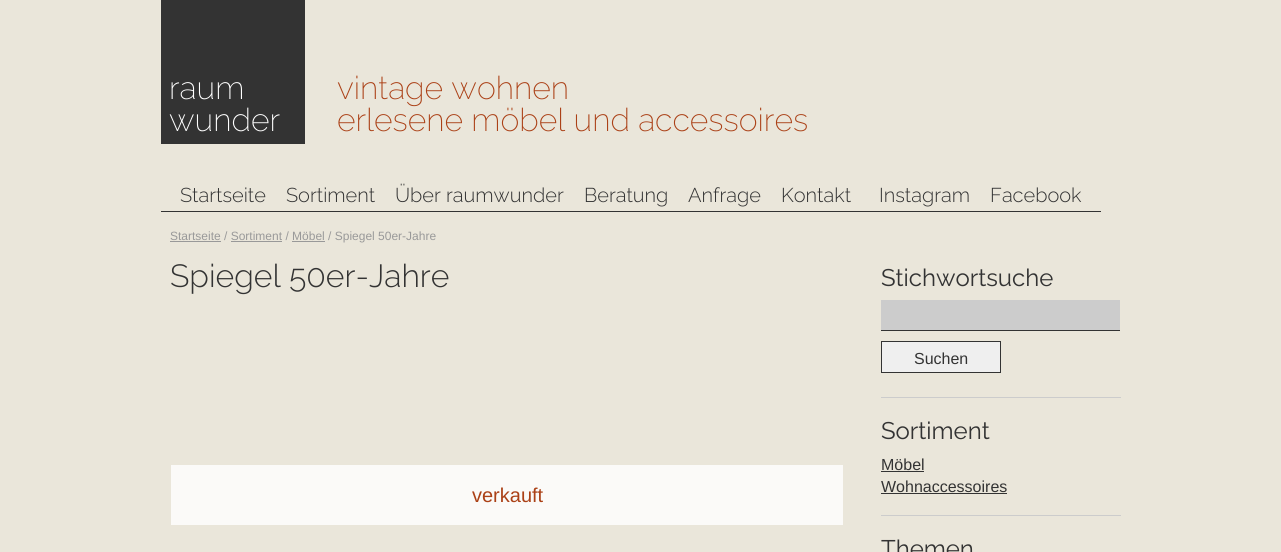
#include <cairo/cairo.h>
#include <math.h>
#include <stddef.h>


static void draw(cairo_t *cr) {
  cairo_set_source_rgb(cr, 234 / 255.0, 230 / 255.0, 218 / 255.0);
  cairo_paint(cr);
  cairo_set_source_rgb(cr, 51 / 255.0, 51 / 255.0, 51 / 255.0);
  cairo_rectangle(cr, 161, 0, 144, 144);
  cairo_fill(cr);
  cairo_rectangle(cr, 161, 211, 940, 1);
  cairo_fill(cr);
  cairo_set_source_rgb(cr, 153 / 255.0, 153 / 255.0, 153 / 255.0);
  cairo_rectangle(cr, 170, 241, 51, 1);
  cairo_fill(cr);
  cairo_rectangle(cr, 231, 241, 51, 1);
  cairo_fill(cr);
  cairo_rectangle(cr, 292, 241, 33, 1);
  cairo_fill(cr);
  cairo_set_source_rgb(cr, 251 / 255.0, 250 / 255.0, 248 / 255.0);
  cairo_rectangle(cr, 171, 465, 672, 60);
  cairo_fill(cr);
  cairo_set_source_rgb(cr, 204 / 255.0, 204 / 255.0, 204 / 255.0);
  cairo_rectangle(cr, 881, 397, 240, 1);
  cairo_fill(cr);
  cairo_rectangle(cr, 881, 300, 239, 30);
  cairo_fill(cr);
  cairo_set_source_rgb(cr, 51 / 255.0, 51 / 255.0, 51 / 255.0);
  cairo_rectangle(cr, 881, 330, 239, 1);
  cairo_fill(cr);
  cairo_set_source_rgb(cr, 239 / 255.0, 239 / 255.0, 239 / 255.0);
  cairo_rectangle(cr, 881.5, 341.5, 119, 31);
  cairo_fill_preserve(cr);
  cairo_set_source_rgb(cr, 51 / 255.0, 51 / 255.0, 51 / 255.0);
  cairo_set_line_width(cr, 1);
  cairo_stroke(cr);
  cairo_set_source_rgb(cr, 204 / 255.0, 204 / 255.0, 204 / 255.0);
  cairo_rectangle(cr, 881, 515, 240, 1);
  cairo_fill(cr);
  cairo_set_source_rgb(cr, 51 / 255.0, 51 / 255.0, 51 / 255.0);
  cairo_rectangle(cr, 881, 471, 43, 1);
  cairo_fill(cr);
  cairo_rectangle(cr, 881, 493, 126, 1);
  cairo_fill(cr);
  cairo_select_font_face(cr, "Raleway ExtraLight", CAIRO_FONT_SLANT_NORMAL, CAIRO_FONT_WEIGHT_NORMAL);
  cairo_set_font_size(cr, 32);
  cairo_set_source_rgb(cr, 1, 1, 1);
  cairo_move_to(cr, 169, 99);
  cairo_show_text(cr, "raum");
  cairo_move_to(cr, 169, 131);
  cairo_show_text(cr, "wunder");
  cairo_set_source_rgb(cr, 171 / 255.0, 65 / 255.0, 23 / 255.0);
  cairo_move_to(cr, 337, 99);
  cairo_show_text(cr, "vintage wohnen");
  cairo_move_to(cr, 337, 131);
  cairo_show_text(cr, "erlesene möbel und accessoires");
  cairo_select_font_face(cr, "Raleway Light", CAIRO_FONT_SLANT_NORMAL, CAIRO_FONT_WEIGHT_NORMAL);
  cairo_set_font_size(cr, 20);
  cairo_set_source_rgb(cr, 51 / 255.0, 51 / 255.0, 51 / 255.0);
  cairo_move_to(cr, 180, 202);
  cairo_show_text(cr, "Startseite");
  cairo_move_to(cr, 286, 202);
  cairo_show_text(cr, "Sortiment");
  cairo_move_to(cr, 395, 202);
  cairo_show_text(cr, "Über raumwunder");
  cairo_move_to(cr, 584, 202);
  cairo_show_text(cr, "Beratung");
  cairo_move_to(cr, 688, 202);
  cairo_show_text(cr, "Anfrage");
  cairo_move_to(cr, 781, 202);
  cairo_show_text(cr, "Kontakt");
  cairo_move_to(cr, 879, 202);
  cairo_show_text(cr, "Instagram");
  cairo_move_to(cr, 990, 202);
  cairo_show_text(cr, "Facebook");
  cairo_select_font_face(cr, "Liberation Sans", CAIRO_FONT_SLANT_NORMAL, CAIRO_FONT_WEIGHT_NORMAL);
  cairo_set_font_size(cr, 12);
  cairo_set_source_rgb(cr, 153 / 255.0, 153 / 255.0, 153 / 255.0);
  cairo_move_to(cr, 170, 240);
  cairo_show_text(cr, "Startseite / Sortiment / Möbel / Spiegel 50er-Jahre");
  cairo_select_font_face(cr, "Raleway Light", CAIRO_FONT_SLANT_NORMAL, CAIRO_FONT_WEIGHT_NORMAL);
  cairo_set_font_size(cr, 32);
  cairo_set_source_rgb(cr, 51 / 255.0, 51 / 255.0, 51 / 255.0);
  cairo_move_to(cr, 170, 287);
  cairo_show_text(cr, "Spiegel 50er-Jahre");
  cairo_select_font_face(cr, "Liberation Sans", CAIRO_FONT_SLANT_NORMAL, CAIRO_FONT_WEIGHT_NORMAL);
  cairo_set_font_size(cr, 20);
  cairo_set_source_rgb(cr, 171 / 255.0, 65 / 255.0, 23 / 255.0);
  cairo_move_to(cr, 472, 502);
  cairo_show_text(cr, "verkauft");
  cairo_select_font_face(cr, "Raleway", CAIRO_FONT_SLANT_NORMAL, CAIRO_FONT_WEIGHT_NORMAL);
  cairo_set_font_size(cr, 24);
  cairo_set_source_rgb(cr, 51 / 255.0, 51 / 255.0, 51 / 255.0);
  cairo_move_to(cr, 881, 286);
  cairo_show_text(cr, "Stichwortsuche");
  cairo_select_font_face(cr, "Liberation Sans", CAIRO_FONT_SLANT_NORMAL, CAIRO_FONT_WEIGHT_NORMAL);
  cairo_set_font_size(cr, 16);
  cairo_move_to(cr, 914, 364);
  cairo_show_text(cr, "Suchen");
  cairo_select_font_face(cr, "Raleway", CAIRO_FONT_SLANT_NORMAL, CAIRO_FONT_WEIGHT_NORMAL);
  cairo_set_font_size(cr, 24);
  cairo_move_to(cr, 881, 439);
  cairo_show_text(cr, "Sortiment");
  cairo_select_font_face(cr, "Liberation Sans", CAIRO_FONT_SLANT_NORMAL, CAIRO_FONT_WEIGHT_NORMAL);
  cairo_set_font_size(cr, 16);
  cairo_move_to(cr, 881, 470);
  cairo_show_text(cr, "Möbel");
  cairo_move_to(cr, 881, 492);
  cairo_show_text(cr, "Wohnaccessoires");
  cairo_select_font_face(cr, "Raleway", CAIRO_FONT_SLANT_NORMAL, CAIRO_FONT_WEIGHT_NORMAL);
  cairo_set_font_size(cr, 24);
  cairo_move_to(cr, 881, 557);
  cairo_show_text(cr, "Themen");
}

int main(void) {
  cairo_surface_t *surface = cairo_image_surface_create(CAIRO_FORMAT_RGB24, 1281, 552);
  cairo_t *cr = cairo_create(surface);
  cairo_font_options_t *options = cairo_font_options_create();
  cairo_font_options_set_hint_metrics(options, CAIRO_HINT_METRICS_OFF);
  cairo_font_options_set_hint_style(options, CAIRO_HINT_STYLE_NONE);
  cairo_set_font_options(cr, options);
  cairo_set_miter_limit(cr, 4);
  draw(cr);
  cairo_surface_write_to_png(surface, "out.png");
  cairo_font_options_destroy(options);
  cairo_destroy(cr);
  cairo_surface_destroy(surface);
  return 0;
}
